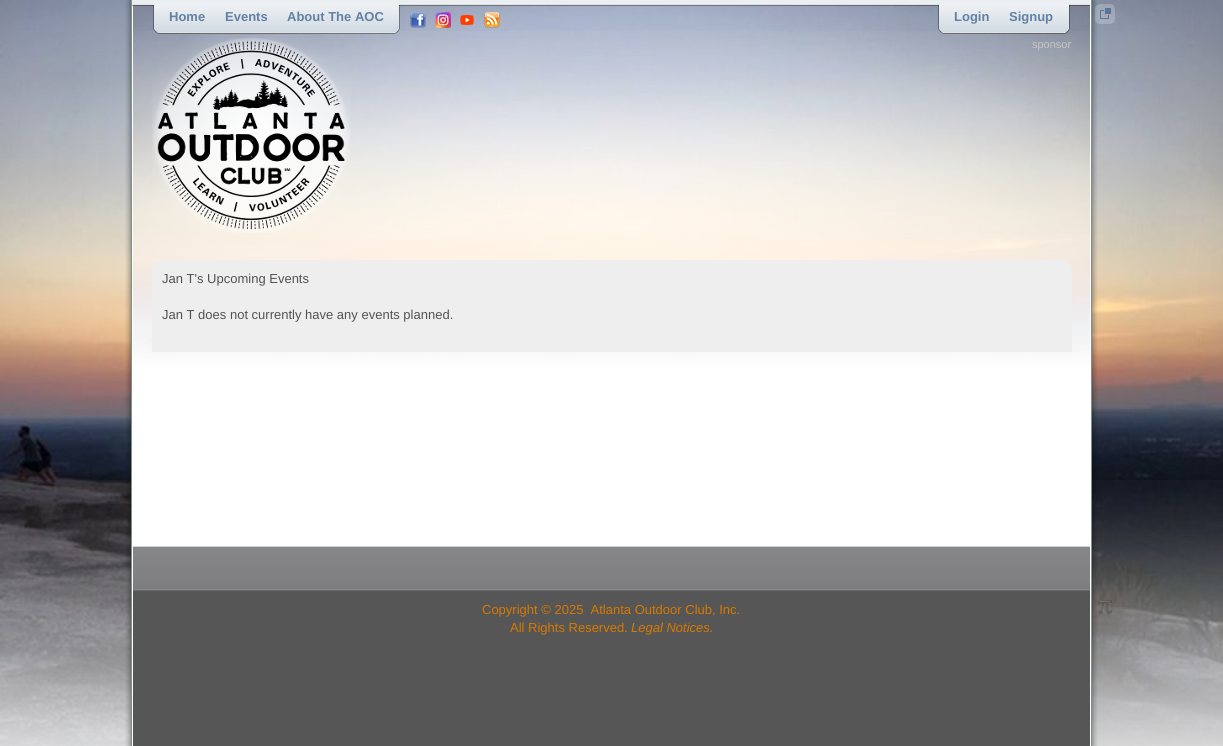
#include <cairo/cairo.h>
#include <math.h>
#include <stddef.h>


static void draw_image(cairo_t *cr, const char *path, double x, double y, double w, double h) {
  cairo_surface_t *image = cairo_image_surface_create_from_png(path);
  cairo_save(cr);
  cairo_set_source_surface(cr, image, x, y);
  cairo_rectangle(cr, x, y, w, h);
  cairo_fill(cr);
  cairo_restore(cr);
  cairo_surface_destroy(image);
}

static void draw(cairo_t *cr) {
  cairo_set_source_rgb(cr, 1, 1, 1);
  cairo_paint(cr);
  draw_image(cr, "images/1.png", 0, 0, 1223, 746);
  draw_image(cr, "images/2.png", 0, 480, 1223, 266);
  draw_image(cr, "images/3.png", 125, 0, 973, 746);
  draw_image(cr, "images/4.png", 133, 5, 957, 361);
  draw_image(cr, "images/5.png", 133, 31, 957, 515);
  draw_image(cr, "images/6.png", 132, 0, 958, 6);
  draw_image(cr, "images/7.png", 153, 4, 6, 30);
  draw_image(cr, "images/8.png", 159, 4, 56, 30);
  draw_image(cr, "images/9.png", 215, 4, 62, 30);
  draw_image(cr, "images/10.png", 277, 4, 117, 30);
  draw_image(cr, "images/11.png", 394, 4, 6, 30);
  draw_image(cr, "images/12.png", 410, 12, 16, 16);
  draw_image(cr, "images/13.png", 435, 12, 16, 16);
  draw_image(cr, "images/14.png", 460, 15, 14, 10);
  draw_image(cr, "images/15.png", 484, 12, 16, 16);
  draw_image(cr, "images/16.png", 938, 4, 6, 30);
  draw_image(cr, "images/17.png", 944, 4, 55, 30);
  draw_image(cr, "images/18.png", 999, 4, 65, 30);
  draw_image(cr, "images/19.png", 1064, 4, 6, 30);
  draw_image(cr, "images/20.png", 1095, 4, 20, 20);
  draw_image(cr, "images/21.png", 152, 35, 199, 199);
  cairo_set_source_rgb(cr, 238 / 255.0, 238 / 255.0, 238 / 255.0);
  cairo_new_path(cr);
  cairo_move_to(cr, 162, 260);
  cairo_line_to(cr, 1062, 260);
  cairo_curve_to(cr, 1067.5, 260, 1072, 264.5, 1072, 270);
  cairo_line_to(cr, 1072, 352);
  cairo_line_to(cr, 152, 352);
  cairo_line_to(cr, 152, 270);
  cairo_curve_to(cr, 152, 264.5, 156.5, 260, 162, 260);
  cairo_close_path(cr);
  cairo_fill(cr);
  cairo_set_source_rgb(cr, 86 / 255.0, 86 / 255.0, 86 / 255.0);
  cairo_rectangle(cr, 133, 591, 957, 155);
  cairo_fill(cr);
  draw_image(cr, "images/22.png", 133, 546, 957, 45);
  draw_image(cr, "images/23.png", 1098, 600, 14, 15);
  cairo_select_font_face(cr, "Liberation Sans", CAIRO_FONT_SLANT_NORMAL, CAIRO_FONT_WEIGHT_BOLD);
  cairo_set_font_size(cr, 13);
  cairo_set_source_rgb(cr, 97 / 255.0, 129 / 255.0, 165 / 255.0);
  cairo_move_to(cr, 169, 21);
  cairo_show_text(cr, "Home");
  cairo_move_to(cr, 225, 21);
  cairo_show_text(cr, "Events");
  cairo_move_to(cr, 287, 21);
  cairo_show_text(cr, "About The AOC");
  cairo_move_to(cr, 954, 21);
  cairo_show_text(cr, "Login");
  cairo_move_to(cr, 1009, 21);
  cairo_show_text(cr, "Signup");
  cairo_select_font_face(cr, "Liberation Sans", CAIRO_FONT_SLANT_NORMAL, CAIRO_FONT_WEIGHT_NORMAL);
  cairo_set_font_size(cr, 11);
  cairo_set_source_rgb(cr, 198 / 255.0, 198 / 255.0, 198 / 255.0);
  cairo_move_to(cr, 1032, 48);
  cairo_show_text(cr, "sponsor");
  cairo_set_font_size(cr, 13);
  cairo_set_source_rgb(cr, 81 / 255.0, 83 / 255.0, 83 / 255.0);
  cairo_move_to(cr, 162, 283);
  cairo_show_text(cr, "Jan T's Upcoming Events");
  cairo_move_to(cr, 162, 319);
  cairo_show_text(cr, "Jan T does not currently have any events planned.");
  cairo_set_source_rgb(cr, 215 / 255.0, 121 / 255.0, 0);
  cairo_move_to(cr, 482, 614);
  cairo_show_text(cr, "Copyright © 2025  Atlanta Outdoor Club, Inc.");
  cairo_move_to(cr, 510, 632);
  cairo_show_text(cr, "All Rights Reserved.");
  cairo_select_font_face(cr, "Liberation Sans", CAIRO_FONT_SLANT_ITALIC, CAIRO_FONT_WEIGHT_NORMAL);
  cairo_move_to(cr, 631, 632);
  cairo_show_text(cr, "Legal Notices.");
}

int main(void) {
  cairo_surface_t *surface = cairo_image_surface_create(CAIRO_FORMAT_RGB24, 1223, 746);
  cairo_t *cr = cairo_create(surface);
  cairo_font_options_t *options = cairo_font_options_create();
  cairo_font_options_set_hint_metrics(options, CAIRO_HINT_METRICS_OFF);
  cairo_font_options_set_hint_style(options, CAIRO_HINT_STYLE_NONE);
  cairo_set_font_options(cr, options);
  cairo_set_miter_limit(cr, 4);
  draw(cr);
  cairo_surface_write_to_png(surface, "out.png");
  cairo_font_options_destroy(options);
  cairo_destroy(cr);
  cairo_surface_destroy(surface);
  return 0;
}
